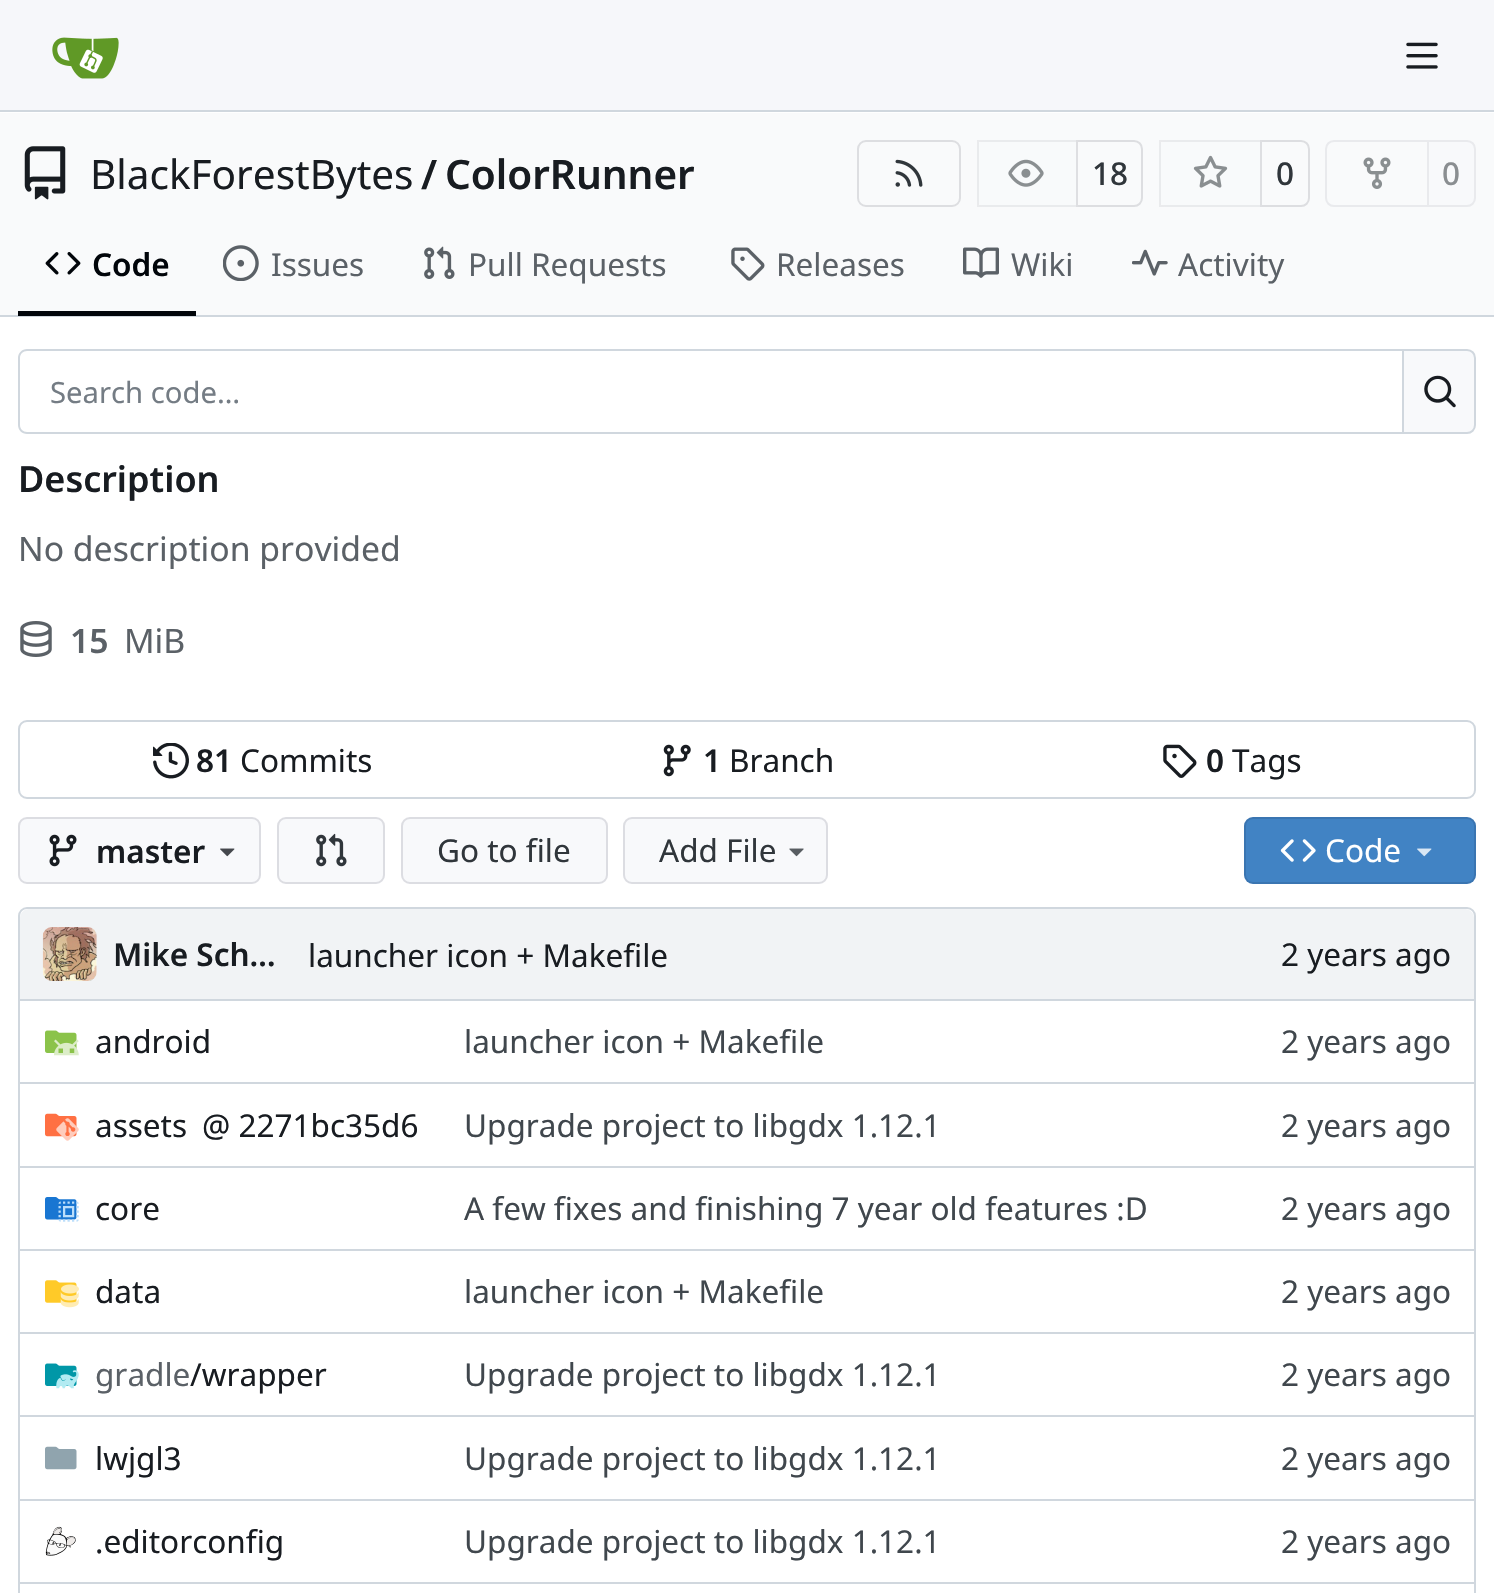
#include "include/core/SkBlurTypes.h"
#include "include/core/SkCanvas.h"
#include "include/core/SkData.h"
#include "include/core/SkFont.h"
#include "include/core/SkFontMgr.h"
#include "include/core/SkImage.h"
#include "include/core/SkMaskFilter.h"
#include "include/core/SkPaint.h"
#include "include/core/SkPathBuilder.h"
#include "include/core/SkTextBlob.h"
#include "include/effects/SkDashPathEffect.h"
#include "include/effects/SkGradientShader.h"
#include "include/utils/SkParsePath.h"

extern sk_sp<SkFontMgr> fontMgr;

void draw(SkCanvas* canvas) {
  SkPaint p;
  p.setAntiAlias(true);
  canvas->clear(SK_ColorWHITE);
  p.setColor(SkColorSetRGB(246, 247, 250));
  canvas->drawRect(SkRect::MakeLTRB(0, 0, 1494, 110), p);
  p.setColor(SkColorSetRGB(208, 215, 222));
  canvas->drawRect(SkRect::MakeLTRB(0, 110, 1494, 112), p);
  canvas->drawImageRect(SkImages::DeferredFromEncodedData(SkData::MakeFromFileName("images/1.png")), SkRect::MakeLTRB(52, 37, 119, 79), SkSamplingOptions());
  canvas->drawImageRect(SkImages::DeferredFromEncodedData(SkData::MakeFromFileName("images/2.png")), SkRect::MakeLTRB(1406, 42, 1438, 69), SkSamplingOptions());
  p.setColor(SkColorSetRGB(249, 250, 251));
  canvas->drawRect(SkRect::MakeLTRB(0, 113, 1494, 315), p);
  canvas->drawImageRect(SkImages::DeferredFromEncodedData(SkData::MakeFromFileName("images/3.png")), SkRect::MakeLTRB(24, 146, 66, 200), SkSamplingOptions());
  p.setStyle(SkPaint::kStroke_Style);
  p.setStrokeWidth(2);
  p.setColor(SkColorSetRGB(221, 222, 225));
  canvas->drawRoundRect(SkRect::MakeLTRB(858, 141, 960, 206), 8, 8, p);
  canvas->drawImageRect(SkImages::DeferredFromEncodedData(SkData::MakeFromFileName("images/4.png")), SkRect::MakeLTRB(895, 159, 923, 187), SkSamplingOptions());
  canvas->drawPath(SkPathBuilder().moveTo(1077, 141).lineTo(1134, 141).cubicTo(1138.5f, 141, 1142, 144.5f, 1142, 149).lineTo(1142, 198).cubicTo(1142, 202.5f, 1138.5f, 206, 1134, 206).lineTo(1077, 206).close().detach(), p);
  p.setStyle(SkPaint::kFill_Style);
  p.setColor(SkColorSetARGB(140, 248, 249, 251));
  canvas->drawPath(SkPathBuilder().moveTo(986, 140).lineTo(1078, 140).lineTo(1078, 207).lineTo(986, 207).cubicTo(981, 207, 977, 203, 977, 198).lineTo(977, 149).cubicTo(977, 144, 981, 140, 986, 140).close().detach(), p);
  p.setStyle(SkPaint::kStroke_Style);
  p.setColor(SkColorSetARGB(15, 0, 0, 23));
  canvas->drawRect(SkRect::MakeLTRB(978, 141, 1077, 206), p);
  canvas->drawImageRect(SkImages::DeferredFromEncodedData(SkData::MakeFromFileName("images/5.png")), SkRect::MakeLTRB(1008, 159, 1044, 187), SkSamplingOptions());
  p.setColor(SkColorSetRGB(221, 222, 225));
  canvas->drawPath(SkPathBuilder().moveTo(1261, 141).lineTo(1301, 141).cubicTo(1305.5f, 141, 1309, 144.5f, 1309, 149).lineTo(1309, 198).cubicTo(1309, 202.5f, 1305.5f, 206, 1301, 206).lineTo(1261, 206).close().detach(), p);
  p.setStyle(SkPaint::kFill_Style);
  p.setColor(SkColorSetARGB(140, 248, 249, 251));
  canvas->drawPath(SkPathBuilder().moveTo(1168, 140).lineTo(1262, 140).lineTo(1262, 207).lineTo(1168, 207).cubicTo(1163, 207, 1159, 203, 1159, 198).lineTo(1159, 149).cubicTo(1159, 144, 1163, 140, 1168, 140).close().detach(), p);
  p.setStyle(SkPaint::kStroke_Style);
  p.setColor(SkColorSetARGB(15, 0, 0, 23));
  canvas->drawRect(SkRect::MakeLTRB(1160, 141, 1261, 206), p);
  canvas->drawImageRect(SkImages::DeferredFromEncodedData(SkData::MakeFromFileName("images/6.png")), SkRect::MakeLTRB(1193, 155, 1228, 188), SkSamplingOptions());
  p.setColor(SkColorSetRGB(233, 234, 237));
  canvas->drawPath(SkPathBuilder().moveTo(1334, 141).lineTo(1428, 141).lineTo(1428, 206).lineTo(1334, 206).cubicTo(1329.5f, 206, 1326, 202.5f, 1326, 198).lineTo(1326, 149).cubicTo(1326, 144.5f, 1329.5f, 141, 1334, 141).close().detach(), p);
  canvas->drawImageRect(SkImages::DeferredFromEncodedData(SkData::MakeFromFileName("images/7.png")), SkRect::MakeLTRB(1363, 157, 1391, 189), SkSamplingOptions());
  p.setStyle(SkPaint::kFill_Style);
  p.setColor(SkColorSetRGB(248, 249, 251));
  canvas->drawPath(SkPathBuilder().moveTo(1428, 141).lineTo(1467, 141).cubicTo(1471.5f, 141, 1475, 144.5f, 1475, 149).lineTo(1475, 198).cubicTo(1475, 202.5f, 1471.5f, 206, 1467, 206).lineTo(1428, 206).close().detach(), p);
  p.setStyle(SkPaint::kStroke_Style);
  p.setColor(SkColorSetRGB(233, 234, 237));
  canvas->drawPath(SkPathBuilder().moveTo(1428, 141).lineTo(1467, 141).cubicTo(1471.5f, 141, 1475, 144.5f, 1475, 149).lineTo(1475, 198).cubicTo(1475, 202.5f, 1471.5f, 206, 1467, 206).lineTo(1428, 206).close().detach(), p);
  p.setStyle(SkPaint::kFill_Style);
  p.setColor(SkColorSetRGB(208, 215, 222));
  canvas->drawRect(SkRect::MakeLTRB(0, 315, 1494, 317), p);
  p.setColor(SkColorSetRGB(1, 5, 10));
  canvas->drawRect(SkRect::MakeLTRB(18, 311, 196, 316), p);
  canvas->drawImageRect(SkImages::DeferredFromEncodedData(SkData::MakeFromFileName("images/8.png")), SkRect::MakeLTRB(45, 252, 81, 275), SkSamplingOptions());
  canvas->drawImageRect(SkImages::DeferredFromEncodedData(SkData::MakeFromFileName("images/9.png")), SkRect::MakeLTRB(223, 245, 259, 281), SkSamplingOptions());
  canvas->drawImageRect(SkImages::DeferredFromEncodedData(SkData::MakeFromFileName("images/10.png")), SkRect::MakeLTRB(424, 246, 455, 279), SkSamplingOptions());
  canvas->drawImageRect(SkImages::DeferredFromEncodedData(SkData::MakeFromFileName("images/11.png")), SkRect::MakeLTRB(731, 247, 765, 281), SkSamplingOptions());
  canvas->drawImageRect(SkImages::DeferredFromEncodedData(SkData::MakeFromFileName("images/12.png")), SkRect::MakeLTRB(963, 247, 999, 278), SkSamplingOptions());
  canvas->drawImageRect(SkImages::DeferredFromEncodedData(SkData::MakeFromFileName("images/13.png")), SkRect::MakeLTRB(1132, 249, 1168, 276), SkSamplingOptions());
  p.setColor(SkColorSetRGB(208, 215, 222));
  canvas->drawPath(SkPathBuilder(SkPathFillType::kEvenOdd).moveTo(27, 349).lineTo(1402, 349).lineTo(1402, 434).lineTo(27, 434).cubicTo(22, 434, 18, 430, 18, 425).lineTo(18, 358).cubicTo(18, 353, 22, 349, 27, 349).close().moveTo(27, 351).lineTo(1402, 351).lineTo(1402, 432).lineTo(27, 432).cubicTo(23, 432, 20, 429, 20, 425).lineTo(20, 358).cubicTo(20, 354, 23, 351, 27, 351).close().detach(), p);
  p.setColor(SkColorSetRGB(248, 249, 251));
  canvas->drawPath(SkPathBuilder().moveTo(1403, 350).lineTo(1467, 350).cubicTo(1471.5f, 350, 1475, 353.5f, 1475, 358).lineTo(1475, 425).cubicTo(1475, 429.5f, 1471.5f, 433, 1467, 433).lineTo(1403, 433).close().detach(), p);
  p.setStyle(SkPaint::kStroke_Style);
  p.setColor(SkColorSetRGB(208, 215, 222));
  canvas->drawPath(SkPathBuilder().moveTo(1403, 350).lineTo(1467, 350).cubicTo(1471.5f, 350, 1475, 353.5f, 1475, 358).lineTo(1475, 425).cubicTo(1475, 429.5f, 1471.5f, 433, 1467, 433).lineTo(1403, 433).close().detach(), p);
  canvas->drawImageRect(SkImages::DeferredFromEncodedData(SkData::MakeFromFileName("images/14.png")), SkRect::MakeLTRB(1424, 375, 1456, 408), SkSamplingOptions());
  canvas->drawImageRect(SkImages::DeferredFromEncodedData(SkData::MakeFromFileName("images/15.png")), SkRect::MakeLTRB(20, 621, 52, 657), SkSamplingOptions());
  canvas->drawRoundRect(SkRect::MakeLTRB(19, 721, 1475, 798), 8, 8, p);
  canvas->drawImageRect(SkImages::DeferredFromEncodedData(SkData::MakeFromFileName("images/16.png")), SkRect::MakeLTRB(153, 743, 189, 779), SkSamplingOptions());
  canvas->drawImageRect(SkImages::DeferredFromEncodedData(SkData::MakeFromFileName("images/17.png")), SkRect::MakeLTRB(663, 744, 691, 777), SkSamplingOptions());
  canvas->drawImageRect(SkImages::DeferredFromEncodedData(SkData::MakeFromFileName("images/18.png")), SkRect::MakeLTRB(1163, 744, 1197, 778), SkSamplingOptions());
  p.setStyle(SkPaint::kFill_Style);
  p.setColor(SkColorSetRGB(248, 249, 251));
  canvas->drawRoundRect(SkRect::MakeLTRB(18, 817, 261, 884), 9, 9, p);
  p.setStyle(SkPaint::kStroke_Style);
  p.setColor(SkColorSetARGB(28, 0, 0, 23));
  canvas->drawRoundRect(SkRect::MakeLTRB(19, 818, 260, 883), 8, 8, p);
  canvas->drawImageRect(SkImages::DeferredFromEncodedData(SkData::MakeFromFileName("images/19.png")), SkRect::MakeLTRB(49, 834, 77, 867), SkSamplingOptions());
  canvas->drawImageRect(SkImages::DeferredFromEncodedData(SkData::MakeFromFileName("images/20.png")), SkRect::MakeLTRB(220, 848, 235, 857), SkSamplingOptions());
  p.setStyle(SkPaint::kFill_Style);
  p.setColor(SkColorSetRGB(248, 249, 251));
  canvas->drawRoundRect(SkRect::MakeLTRB(277, 817, 385, 884), 9, 9, p);
  p.setStyle(SkPaint::kStroke_Style);
  p.setColor(SkColorSetARGB(28, 0, 0, 23));
  canvas->drawRoundRect(SkRect::MakeLTRB(278, 818, 384, 883), 8, 8, p);
  canvas->drawImageRect(SkImages::DeferredFromEncodedData(SkData::MakeFromFileName("images/21.png")), SkRect::MakeLTRB(316, 833, 347, 867), SkSamplingOptions());
  p.setStyle(SkPaint::kFill_Style);
  p.setColor(SkColorSetRGB(248, 249, 251));
  canvas->drawRoundRect(SkRect::MakeLTRB(401, 817, 608, 884), 9, 9, p);
  p.setStyle(SkPaint::kStroke_Style);
  p.setColor(SkColorSetARGB(28, 0, 0, 23));
  canvas->drawRoundRect(SkRect::MakeLTRB(402, 818, 607, 883), 8, 8, p);
  p.setStyle(SkPaint::kFill_Style);
  p.setColor(SkColorSetRGB(248, 249, 251));
  canvas->drawRoundRect(SkRect::MakeLTRB(623, 817, 828, 884), 9, 9, p);
  p.setStyle(SkPaint::kStroke_Style);
  p.setColor(SkColorSetARGB(28, 0, 0, 23));
  canvas->drawRoundRect(SkRect::MakeLTRB(624, 818, 827, 883), 8, 8, p);
  canvas->drawImageRect(SkImages::DeferredFromEncodedData(SkData::MakeFromFileName("images/22.png")), SkRect::MakeLTRB(789, 848, 804, 857), SkSamplingOptions());
  p.setStyle(SkPaint::kFill_Style);
  p.setColor(SkColorSetRGB(65, 131, 196));
  canvas->drawRoundRect(SkRect::MakeLTRB(1244, 817, 1476, 884), 9, 9, p);
  p.setStyle(SkPaint::kStroke_Style);
  p.setColor(SkColorSetARGB(28, 0, 0, 23));
  canvas->drawRoundRect(SkRect::MakeLTRB(1245, 818, 1475, 883), 8, 8, p);
  canvas->drawImageRect(SkImages::DeferredFromEncodedData(SkData::MakeFromFileName("images/23.png")), SkRect::MakeLTRB(1280, 839, 1316, 862), SkSamplingOptions());
  canvas->drawImageRect(SkImages::DeferredFromEncodedData(SkData::MakeFromFileName("images/24.png")), SkRect::MakeLTRB(1417, 848, 1432, 857), SkSamplingOptions());
  p.setColor(SkColorSetRGB(208, 215, 222));
  canvas->drawRoundRect(SkRect::MakeLTRB(19, 908, 1475, 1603), 8, 8, p);
  p.setStyle(SkPaint::kFill_Style);
  p.setColor(SkColorSetRGB(241, 243, 245));
  canvas->drawPath(SkPathBuilder().moveTo(29, 909).lineTo(1465, 909).cubicTo(1470, 909, 1474, 913, 1474, 918).lineTo(1474, 999).lineTo(20, 999).lineTo(20, 918).cubicTo(20, 913, 24, 909, 29, 909).close().detach(), p);
  canvas->drawImageRect(SkImages::DeferredFromEncodedData(SkData::MakeFromFileName("images/25.png")), SkRect::MakeLTRB(42, 927, 97, 981), SkSamplingOptions());
  p.setColor(SkColorSetRGB(208, 215, 222));
  canvas->drawRect(SkRect::MakeLTRB(20, 999, 1258, 1001), p);
  canvas->drawImageRect(SkImages::DeferredFromEncodedData(SkData::MakeFromFileName("images/26.png")), SkRect::MakeLTRB(45, 1030, 79, 1056), SkSamplingOptions());
  canvas->drawRect(SkRect::MakeLTRB(1258, 999, 1474, 1001), p);
  canvas->drawRect(SkRect::MakeLTRB(20, 1082, 1258, 1084), p);
  canvas->drawImageRect(SkImages::DeferredFromEncodedData(SkData::MakeFromFileName("images/27.png")), SkRect::MakeLTRB(45, 1113, 79, 1141), SkSamplingOptions());
  canvas->drawRect(SkRect::MakeLTRB(1258, 1082, 1474, 1084), p);
  canvas->drawRect(SkRect::MakeLTRB(20, 1166, 1258, 1168), p);
  canvas->drawImageRect(SkImages::DeferredFromEncodedData(SkData::MakeFromFileName("images/28.png")), SkRect::MakeLTRB(45, 1197, 79, 1222), SkSamplingOptions());
  canvas->drawRect(SkRect::MakeLTRB(1258, 1166, 1474, 1168), p);
  canvas->drawRect(SkRect::MakeLTRB(20, 1249, 1258, 1251), p);
  canvas->drawImageRect(SkImages::DeferredFromEncodedData(SkData::MakeFromFileName("images/29.png")), SkRect::MakeLTRB(45, 1280, 79, 1308), SkSamplingOptions());
  canvas->drawRect(SkRect::MakeLTRB(1258, 1249, 1474, 1251), p);
  canvas->drawRect(SkRect::MakeLTRB(20, 1332, 1258, 1334), p);
  canvas->drawImageRect(SkImages::DeferredFromEncodedData(SkData::MakeFromFileName("images/30.png")), SkRect::MakeLTRB(45, 1363, 79, 1389), SkSamplingOptions());
  canvas->drawRect(SkRect::MakeLTRB(1258, 1332, 1474, 1334), p);
  canvas->drawRect(SkRect::MakeLTRB(20, 1415, 1258, 1417), p);
  canvas->drawImageRect(SkImages::DeferredFromEncodedData(SkData::MakeFromFileName("images/31.png")), SkRect::MakeLTRB(45, 1446, 77, 1470), SkSamplingOptions());
  canvas->drawRect(SkRect::MakeLTRB(1258, 1415, 1474, 1417), p);
  canvas->drawRect(SkRect::MakeLTRB(20, 1499, 1258, 1501), p);
  canvas->drawImageRect(SkImages::DeferredFromEncodedData(SkData::MakeFromFileName("images/32.png")), SkRect::MakeLTRB(45, 1526, 76, 1556), SkSamplingOptions());
  canvas->drawRect(SkRect::MakeLTRB(1258, 1499, 1474, 1501), p);
  canvas->drawRect(SkRect::MakeLTRB(20, 1582, 1258, 1584), p);
  canvas->drawRect(SkRect::MakeLTRB(1258, 1582, 1474, 1584), p);
  SkFont font1(fontMgr->matchFamilyStyle("Noto Sans", SkFontStyle::Normal()), 40.5f);
  font1.setSubpixel(true);
  p.setColor(SkColorSetRGB(24, 28, 33));
  canvas->drawString("BlackForestBytes", 90, 189, font1, p);
  SkFont font2(fontMgr->matchFamilyStyle("Noto Sans", SkFontStyle(600, SkFontStyle::kNormal_Width, SkFontStyle::kUpright_Slant)), 40.5f);
  font2.setSubpixel(true);
  canvas->drawString("/", 421, 189, font2, p);
  canvas->drawString("ColorRunner", 445, 189, font2, p);
  SkFont font3(fontMgr->matchFamilyStyle("Noto Sans", SkFontStyle(500, SkFontStyle::kNormal_Width, SkFontStyle::kUpright_Slant)), 31.5f);
  font3.setSubpixel(true);
  p.setColor(SkColorSetRGB(48, 54, 59));
  canvas->drawString("18", 1092, 185, font3, p);
  canvas->drawString("0", 1276, 185, font3, p);
  p.setColor(SkColorSetRGB(138, 142, 145));
  canvas->drawString("0", 1442, 185, font3, p);
  SkFont font4(fontMgr->matchFamilyStyle("Noto Sans", SkFontStyle(600, SkFontStyle::kNormal_Width, SkFontStyle::kUpright_Slant)), 31.5f);
  font4.setSubpixel(true);
  p.setColor(SkColorSetRGB(1, 5, 10));
  canvas->drawString("Code", 92, 276, font4, p);
  SkFont font5(fontMgr->matchFamilyStyle("Noto Sans", SkFontStyle::Normal()), 31.5f);
  font5.setSubpixel(true);
  p.setColor(SkColorSetRGB(91, 97, 103));
  canvas->drawString("Issues", 271, 276, font5, p);
  canvas->drawString("Pull Requests", 468, 276, font5, p);
  canvas->drawString("Releases", 776, 276, font5, p);
  canvas->drawString("Wiki", 1011, 276, font5, p);
  canvas->drawString("Activity", 1178, 276, font5, p);
  SkFont font6(fontMgr->matchFamilyStyle("Noto Sans", SkFontStyle::Normal()), 29.25f);
  font6.setSubpixel(true);
  p.setColor(SkColorSetRGB(116, 124, 132));
  canvas->drawString("Search code…", 50, 403, font6, p);
  SkFont font7(fontMgr->matchFamilyStyle("Noto Sans", SkFontStyle(600, SkFontStyle::kNormal_Width, SkFontStyle::kUpright_Slant)), 36);
  font7.setSubpixel(true);
  p.setColor(SkColorSetRGB(24, 28, 33));
  canvas->drawString("Description", 18, 492, font7, p);
  SkFont font8(fontMgr->matchFamilyStyle("Noto Sans", SkFontStyle::Normal()), 33.75f);
  font8.setSubpixel(true);
  p.setColor(SkColorSetRGB(91, 97, 103));
  canvas->drawString("No description provided", 18, 561, font8, p);
  SkFont font9(fontMgr->matchFamilyStyle("Noto Sans", SkFontStyle(600, SkFontStyle::kNormal_Width, SkFontStyle::kUpright_Slant)), 33.75f);
  font9.setSubpixel(true);
  canvas->drawString("15", 70, 653, font9, p);
  canvas->drawString("MiB", 124, 653, font8, p);
  p.setColor(SkColorSetRGB(24, 28, 33));
  canvas->drawString("81", 196, 772, font4, p);
  canvas->drawString("Commits", 240, 772, font5, p);
  canvas->drawString("1", 703, 772, font4, p);
  canvas->drawString("Branch", 729, 772, font5, p);
  canvas->drawString("0", 1206, 772, font4, p);
  canvas->drawString("Tags", 1232, 772, font5, p);
  canvas->drawString("master", 96, 863, font4, p);
  p.setColor(SkColorSetRGB(48, 54, 59));
  canvas->drawString("Go to file", 437, 862, font5, p);
  canvas->drawString("Add File", 659, 862, font5, p);
  p.setColor(SK_ColorWHITE);
  canvas->drawString("Code", 1325, 862, font5, p);
  p.setColor(SkColorSetRGB(24, 28, 33));
  canvas->drawString("Mike Sch…", 113, 966, font4, p);
  canvas->drawString("launcher icon + Makefile", 308, 967, font5, p);
  canvas->drawString("2 years ago", 1281, 966, font5, p);
  canvas->drawString("android", 95, 1053, font5, p);
  p.setColor(SkColorSetRGB(64, 71, 77));
  canvas->drawString("launcher icon + Makefile", 464, 1053, font5, p);
  canvas->drawString("2 years ago", 1281, 1053, font5, p);
  p.setColor(SkColorSetRGB(24, 28, 33));
  canvas->drawString("assets", 95, 1137, font5, p);
  canvas->drawString("@ 2271bc35d6", 202, 1137, font5, p);
  p.setColor(SkColorSetRGB(64, 71, 77));
  canvas->drawString("Upgrade project to libgdx 1.12.1", 464, 1137, font5, p);
  canvas->drawString("2 years ago", 1281, 1137, font5, p);
  p.setColor(SkColorSetRGB(24, 28, 33));
  canvas->drawString("core", 95, 1220, font5, p);
  p.setColor(SkColorSetRGB(64, 71, 77));
  canvas->drawString("A few fixes and finishing 7 year old features :D", 464, 1220, font5, p);
  canvas->drawString("2 years ago", 1281, 1220, font5, p);
  p.setColor(SkColorSetRGB(24, 28, 33));
  canvas->drawString("data", 95, 1303, font5, p);
  p.setColor(SkColorSetRGB(64, 71, 77));
  canvas->drawString("launcher icon + Makefile", 464, 1303, font5, p);
  canvas->drawString("2 years ago", 1281, 1303, font5, p);
  p.setColor(SkColorSetRGB(91, 97, 103));
  canvas->drawString("gradle", 95, 1386, font5, p);
  p.setColor(SkColorSetRGB(24, 28, 33));
  canvas->drawString("/wrapper", 190, 1386, font5, p);
  p.setColor(SkColorSetRGB(64, 71, 77));
  canvas->drawString("Upgrade project to libgdx 1.12.1", 464, 1386, font5, p);
  canvas->drawString("2 years ago", 1281, 1386, font5, p);
  p.setColor(SkColorSetRGB(24, 28, 33));
  canvas->drawString("lwjgl3", 95, 1470, font5, p);
  p.setColor(SkColorSetRGB(64, 71, 77));
  canvas->drawString("Upgrade project to libgdx 1.12.1", 464, 1470, font5, p);
  canvas->drawString("2 years ago", 1281, 1470, font5, p);
  p.setColor(SkColorSetRGB(24, 28, 33));
  canvas->drawString(".editorconfig", 95, 1553, font5, p);
  p.setColor(SkColorSetRGB(64, 71, 77));
  canvas->drawString("Upgrade project to libgdx 1.12.1", 464, 1553, font5, p);
  canvas->drawString("2 years ago", 1281, 1553, font5, p);
}
